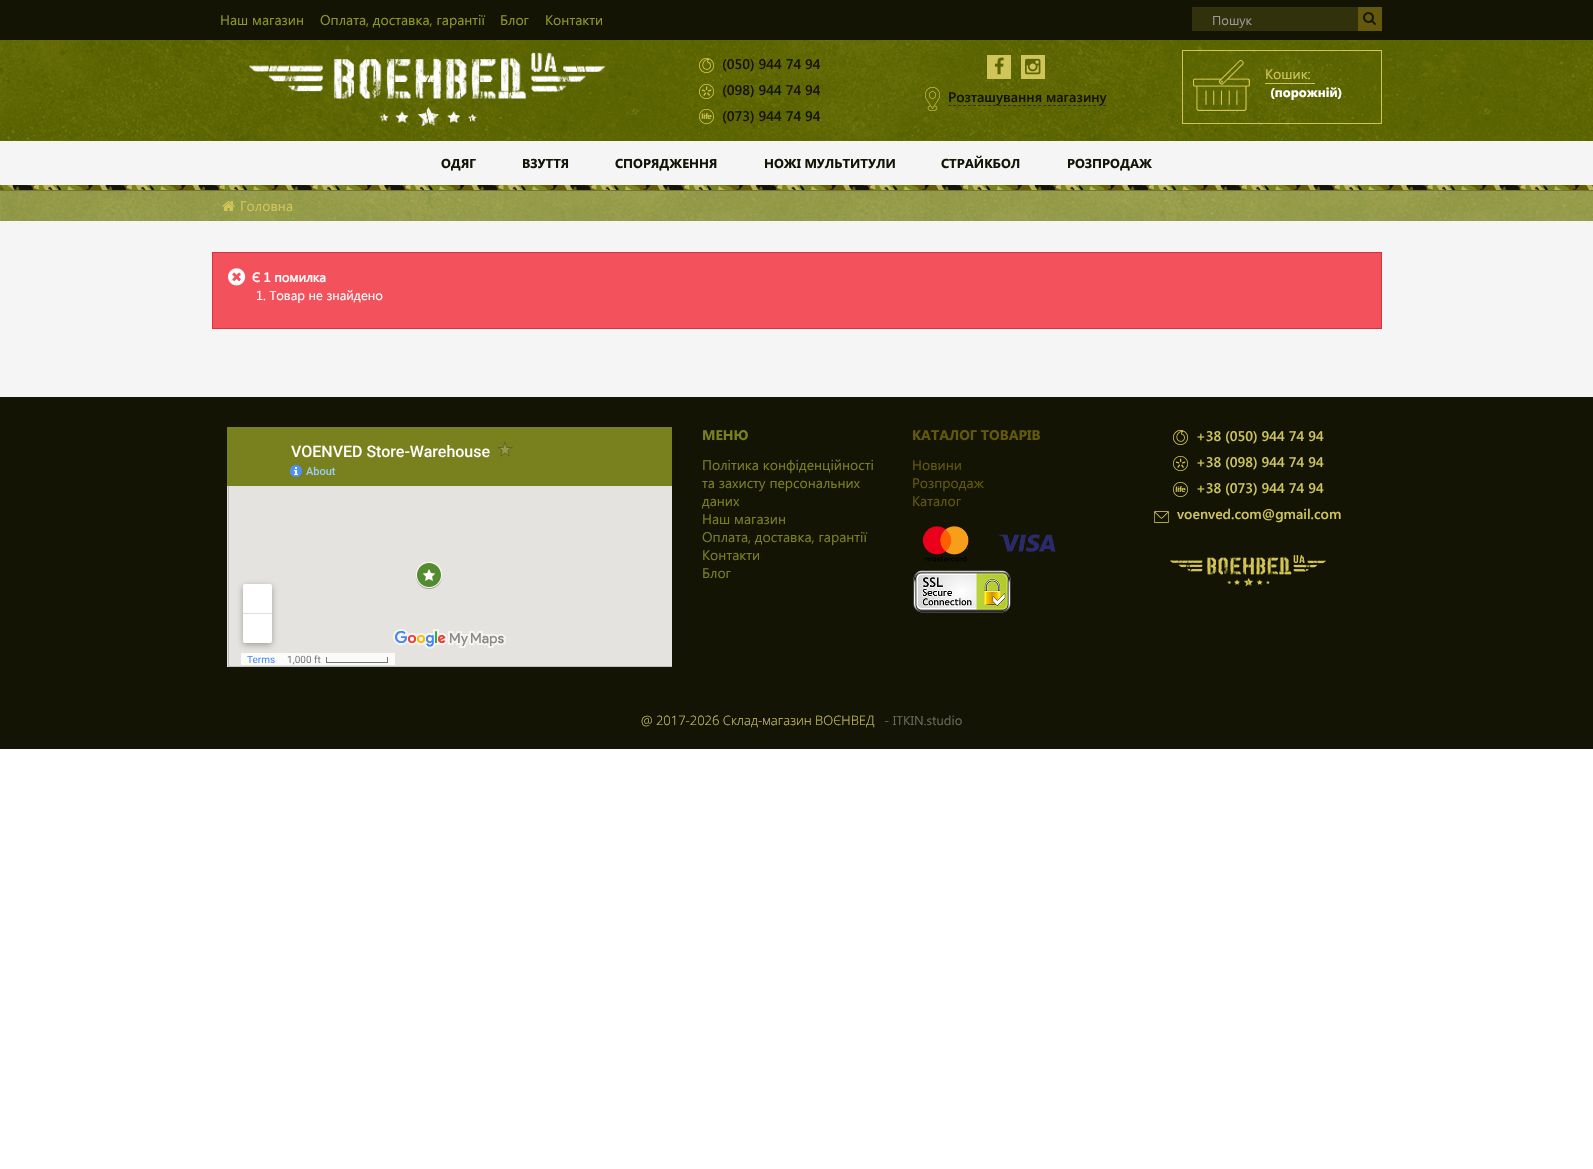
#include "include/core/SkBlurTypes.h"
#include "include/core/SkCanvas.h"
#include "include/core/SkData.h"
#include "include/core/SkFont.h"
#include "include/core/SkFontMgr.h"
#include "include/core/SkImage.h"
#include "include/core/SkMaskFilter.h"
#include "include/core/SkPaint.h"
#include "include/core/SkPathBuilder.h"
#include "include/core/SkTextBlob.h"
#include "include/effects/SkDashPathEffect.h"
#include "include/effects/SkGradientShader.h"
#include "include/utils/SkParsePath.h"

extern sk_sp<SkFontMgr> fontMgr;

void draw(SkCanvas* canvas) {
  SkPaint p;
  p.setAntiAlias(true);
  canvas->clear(SK_ColorWHITE);
  p.setColor(SkColorSetRGB(20, 20, 5));
  canvas->drawRect(SkRect::MakeLTRB(0, 0, 1593, 40), p);
  p.setColor(SkColorSetRGB(49, 50, 12));
  canvas->drawRect(SkRect::MakeLTRB(1192, 7, 1358, 31), p);
  p.setColor(SkColorSetRGB(100, 89, 10));
  canvas->drawRect(SkRect::MakeLTRB(1358, 7, 1382, 31), p);
  canvas->drawImageRect(SkImages::DeferredFromEncodedData(SkData::MakeFromFileName("images/1.png")), SkRect::MakeLTRB(1363, 12, 1376, 25), SkSamplingOptions());
  canvas->drawImageRect(SkImages::DeferredFromEncodedData(SkData::MakeFromFileName("images/2.png")), SkRect::MakeLTRB(0, 40, 1593, 141), SkSamplingOptions());
  canvas->drawImageRect(SkImages::DeferredFromEncodedData(SkData::MakeFromFileName("images/3.png")), SkRect::MakeLTRB(249, 52, 606, 126), SkSamplingOptions());
  canvas->drawImageRect(SkImages::DeferredFromEncodedData(SkData::MakeFromFileName("images/4.png")), SkRect::MakeLTRB(699, 58, 714, 73), SkSamplingOptions());
  canvas->drawImageRect(SkImages::DeferredFromEncodedData(SkData::MakeFromFileName("images/5.png")), SkRect::MakeLTRB(699, 84, 714, 99), SkSamplingOptions());
  canvas->drawImageRect(SkImages::DeferredFromEncodedData(SkData::MakeFromFileName("images/6.png")), SkRect::MakeLTRB(699, 109, 714, 124), SkSamplingOptions());
  p.setColor(SkColorSetRGB(207, 197, 91));
  canvas->drawRect(SkRect::MakeLTRB(987, 55, 1011, 79), p);
  canvas->drawImageRect(SkImages::DeferredFromEncodedData(SkData::MakeFromFileName("images/7.png")), SkRect::MakeLTRB(994, 57, 1004, 75), SkSamplingOptions());
  canvas->drawRect(SkRect::MakeLTRB(1021, 55, 1045, 79), p);
  canvas->drawImageRect(SkImages::DeferredFromEncodedData(SkData::MakeFromFileName("images/8.png")), SkRect::MakeLTRB(1025, 58, 1041, 75), SkSamplingOptions());
  canvas->drawImageRect(SkImages::DeferredFromEncodedData(SkData::MakeFromFileName("images/9.png")), SkRect::MakeLTRB(925, 87, 940, 111), SkSamplingOptions());
  p.setStyle(SkPaint::kStroke_Style);
  p.setStrokeWidth(1);
  p.setColor(SkColorSetRGB(51, 51, 51));
  p.setPathEffect(SkDashPathEffect::Make({{3, 2}}, 0));
  canvas->drawPath(SkPathBuilder().moveTo(948, 105.5f).lineTo(1106, 105.5f).detach(), p);
  p.setPathEffect(nullptr);
  p.setColor(SkColorSetRGB(207, 197, 91));
  canvas->drawRect(SkRect::MakeLTRB(1182.5f, 50.5f, 1381.5f, 123.5f), p);
  canvas->drawImageRect(SkImages::DeferredFromEncodedData(SkData::MakeFromFileName("images/10.png")), SkRect::MakeLTRB(1193, 60, 1250, 111), SkSamplingOptions());
  p.setStyle(SkPaint::kFill_Style);
  canvas->drawRect(SkRect::MakeLTRB(1265, 83, 1315, 84), p);
  p.setColor(SkColorSetRGB(245, 245, 245));
  canvas->drawRect(SkRect::MakeLTRB(0, 141, 1593, 397), p);
  canvas->drawImageRect(SkImages::DeferredFromEncodedData(SkData::MakeFromFileName("images/11.png")), SkRect::MakeLTRB(0, 185, 1593, 190), SkSamplingOptions());
  canvas->drawImageRect(SkImages::DeferredFromEncodedData(SkData::MakeFromFileName("images/12.png")), SkRect::MakeLTRB(0, 191, 1593, 221), SkSamplingOptions());
  p.setColor(SkColorSetRGB(113, 115, 60));
  canvas->drawRect(SkRect::MakeLTRB(0, 190, 1593, 191), p);
  canvas->drawImageRect(SkImages::DeferredFromEncodedData(SkData::MakeFromFileName("images/13.png")), SkRect::MakeLTRB(222, 201, 235, 211), SkSamplingOptions());
  p.setColor(SkColorSetRGB(243, 81, 92));
  canvas->drawRect(SkRect::MakeLTRB(212.5f, 252.5f, 1381.5f, 328.5f), p);
  p.setStyle(SkPaint::kStroke_Style);
  p.setColor(SkColorSetRGB(212, 50, 61));
  canvas->drawRect(SkRect::MakeLTRB(212.5f, 252.5f, 1381.5f, 328.5f), p);
  canvas->drawImageRect(SkImages::DeferredFromEncodedData(SkData::MakeFromFileName("images/14.png")), SkRect::MakeLTRB(228, 268, 246, 286), SkSamplingOptions());
  p.setStyle(SkPaint::kFill_Style);
  p.setColor(SkColorSetRGB(20, 20, 5));
  canvas->drawRect(SkRect::MakeLTRB(0, 397, 1593, 749), p);
  canvas->drawImageRect(SkImages::DeferredFromEncodedData(SkData::MakeFromFileName("images/15.png")), SkRect::MakeLTRB(227, 427, 672, 667), SkSamplingOptions());
  canvas->drawImageRect(SkImages::DeferredFromEncodedData(SkData::MakeFromFileName("images/16.png")), SkRect::MakeLTRB(922, 526, 1056, 562), SkSamplingOptions());
  canvas->drawImageRect(SkImages::DeferredFromEncodedData(SkData::MakeFromFileName("images/17.png")), SkRect::MakeLTRB(913, 570, 1011, 613), SkSamplingOptions());
  canvas->drawImageRect(SkImages::DeferredFromEncodedData(SkData::MakeFromFileName("images/18.png")), SkRect::MakeLTRB(1173, 430, 1188, 445), SkSamplingOptions());
  canvas->drawImageRect(SkImages::DeferredFromEncodedData(SkData::MakeFromFileName("images/19.png")), SkRect::MakeLTRB(1173, 456, 1188, 471), SkSamplingOptions());
  canvas->drawImageRect(SkImages::DeferredFromEncodedData(SkData::MakeFromFileName("images/20.png")), SkRect::MakeLTRB(1173, 482, 1188, 497), SkSamplingOptions());
  canvas->drawImageRect(SkImages::DeferredFromEncodedData(SkData::MakeFromFileName("images/21.png")), SkRect::MakeLTRB(1154, 511, 1169, 523), SkSamplingOptions());
  canvas->drawImageRect(SkImages::DeferredFromEncodedData(SkData::MakeFromFileName("images/22.png")), SkRect::MakeLTRB(1170, 555, 1326, 586), SkSamplingOptions());
  SkFont font1(fontMgr->matchFamilyStyle("Segoe UI", SkFontStyle::Normal()), 14);
  font1.setSubpixel(true);
  p.setColor(SkColorSetRGB(143, 152, 35));
  canvas->drawString("Наш магазин", 220, 25, font1, p);
  canvas->drawString("Оплата, доставка, гарантії", 320, 25, font1, p);
  canvas->drawString("Блог", 500, 25, font1, p);
  canvas->drawString("Контакти", 545, 25, font1, p);
  SkFont font2(fontMgr->matchFamilyStyle("Segoe UI", SkFontStyle::Normal()), 13);
  font2.setSubpixel(true);
  p.setColor(SkColorSetRGB(153, 153, 153));
  canvas->drawString("Пошук", 1212, 25, font2, p);
  SkFont font3(fontMgr->matchFamilyStyle("Segoe UI", SkFontStyle(600, SkFontStyle::kNormal_Width, SkFontStyle::kUpright_Slant)), 14);
  font3.setSubpixel(true);
  p.setColor(SkColorSetRGB(20, 20, 5));
  canvas->drawString("(050) 944 74 94", 722, 69, font3, p);
  canvas->drawString("(098) 944 74 94", 722, 95, font3, p);
  canvas->drawString("(073) 944 74 94", 722, 121, font3, p);
  canvas->drawString("Розташування магазину", 948, 102, font3, p);
  p.setColor(SkColorSetRGB(207, 197, 91));
  canvas->drawString("Кошик:", 1265, 79, font1, p);
  SkFont font4(fontMgr->matchFamilyStyle("Segoe UI", SkFontStyle::Bold()), 13);
  font4.setSubpixel(true);
  p.setColor(SK_ColorWHITE);
  canvas->drawString("(порожній)", 1270, 97, font4, p);
  p.setColor(SkColorSetRGB(20, 20, 5));
  canvas->drawString("ОДЯГ", 441, 168, font4, p);
  canvas->drawString("ВЗУТТЯ", 522, 168, font4, p);
  canvas->drawString("СПОРЯДЖЕННЯ", 615, 168, font4, p);
  canvas->drawString("НОЖІ МУЛЬТИТУЛИ", 764, 168, font4, p);
  canvas->drawString("СТРАЙКБОЛ", 941, 168, font4, p);
  canvas->drawString("РОЗПРОДАЖ", 1067, 168, font4, p);
  p.setColor(SkColorSetRGB(207, 197, 91));
  canvas->drawString("Головна", 240, 211, font1, p);
  SkFont font5(fontMgr->matchFamilyStyle("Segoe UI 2", SkFontStyle::Bold()), 13);
  font5.setSubpixel(true);
  p.setColor(SK_ColorWHITE);
  canvas->drawString("Є 1 помилка", 252, 282, font5, p);
  canvas->drawString("1. Товар не знайдено", 256, 300, font2, p);
  SkFont font6(fontMgr->matchFamilyStyle("Segoe UI", SkFontStyle::Bold()), 14);
  font6.setSubpixel(true);
  p.setColor(SkColorSetRGB(121, 129, 30));
  canvas->drawString("МЕНЮ", 702, 440, font6, p);
  canvas->drawString("Політика конфіденційності", 702, 470, font1, p);
  canvas->drawString("та захисту персональних", 702, 488, font1, p);
  canvas->drawString("даних", 702, 506, font1, p);
  canvas->drawString("Наш магазин", 702, 524, font1, p);
  canvas->drawString("Оплата, доставка, гарантії", 702, 542, font1, p);
  canvas->drawString("Контакти", 702, 560, font1, p);
  canvas->drawString("Блог", 702, 578, font1, p);
  p.setColor(SkColorSetRGB(100, 89, 10));
  canvas->drawString("КАТАЛОГ ТОВАРІВ", 912, 440, font6, p);
  canvas->drawString("Новини", 912, 470, font1, p);
  canvas->drawString("Розпродаж", 912, 488, font1, p);
  canvas->drawString("Каталог", 912, 506, font1, p);
  p.setColor(SkColorSetRGB(207, 197, 91));
  canvas->drawString("+38 (050) 944 74 94", 1196, 441, font3, p);
  canvas->drawString("+38 (098) 944 74 94", 1196, 467, font3, p);
  canvas->drawString("+38 (073) 944 74 94", 1196, 493, font3, p);
  canvas->drawString("voenved.com@gmail.com", 1177, 519, font3, p);
  SkFont font7(fontMgr->matchFamilyStyle("Open Sans", SkFontStyle(300, SkFontStyle::kNormal_Width, SkFontStyle::kUpright_Slant)), 13);
  font7.setSubpixel(true);
  canvas->drawString("@ 2017-2026 Склад-магазин ВОЄНВЕД", 641, 725, font7, p);
  p.setColor(SkColorSetRGB(102, 102, 92));
  canvas->drawString("- ITKIN.studio", 884, 725, font2, p);
}
